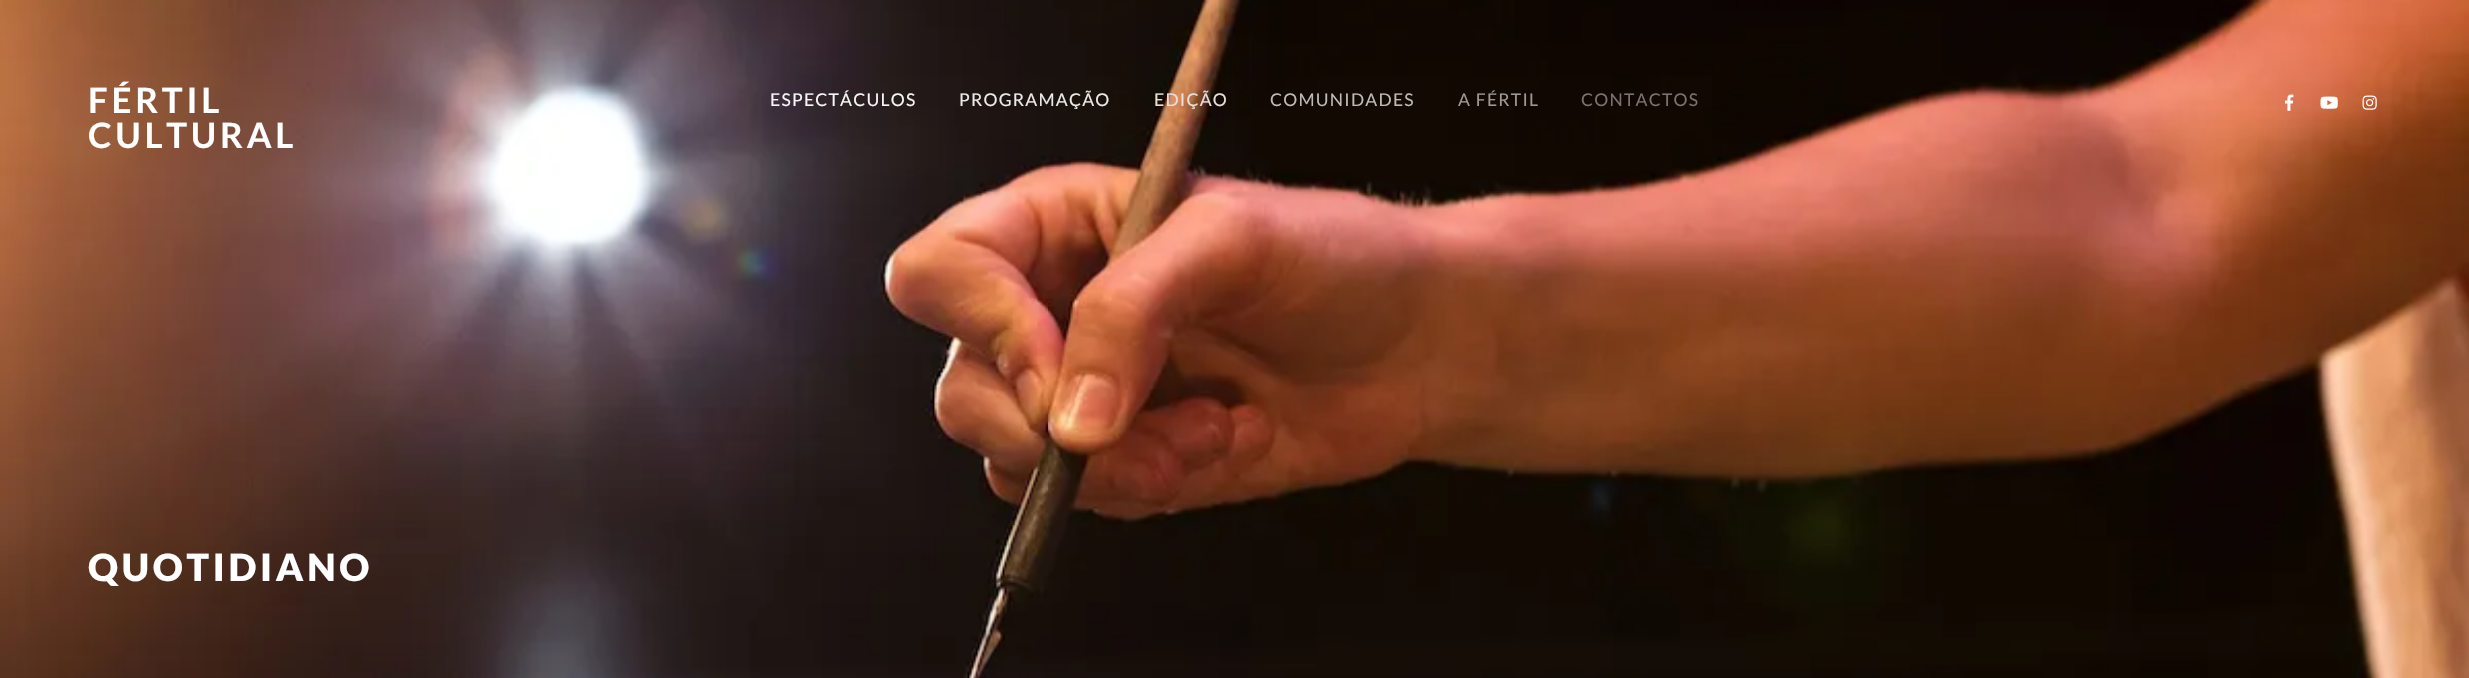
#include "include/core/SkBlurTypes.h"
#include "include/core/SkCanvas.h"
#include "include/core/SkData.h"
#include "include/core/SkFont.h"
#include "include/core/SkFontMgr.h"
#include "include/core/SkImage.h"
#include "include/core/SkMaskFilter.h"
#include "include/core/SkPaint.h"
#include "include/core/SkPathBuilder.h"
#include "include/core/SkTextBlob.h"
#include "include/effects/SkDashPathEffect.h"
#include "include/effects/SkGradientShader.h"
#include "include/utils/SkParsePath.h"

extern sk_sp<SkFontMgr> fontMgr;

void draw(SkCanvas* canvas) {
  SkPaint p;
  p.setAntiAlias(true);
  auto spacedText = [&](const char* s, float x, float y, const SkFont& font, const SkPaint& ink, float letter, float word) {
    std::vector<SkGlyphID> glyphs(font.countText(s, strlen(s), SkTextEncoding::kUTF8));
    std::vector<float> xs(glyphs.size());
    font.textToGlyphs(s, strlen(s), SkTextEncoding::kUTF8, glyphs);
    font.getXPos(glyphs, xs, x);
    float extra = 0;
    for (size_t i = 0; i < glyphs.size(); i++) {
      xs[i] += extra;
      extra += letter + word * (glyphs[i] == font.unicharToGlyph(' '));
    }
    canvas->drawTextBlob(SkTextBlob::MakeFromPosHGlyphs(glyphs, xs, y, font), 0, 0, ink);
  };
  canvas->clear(SK_ColorWHITE);
  canvas->drawImageRect(SkImages::DeferredFromEncodedData(SkData::MakeFromFileName("images/1.png")), SkRect::MakeLTRB(0, 0, 2469, 678), SkSamplingOptions());
  canvas->drawImageRect(SkImages::DeferredFromEncodedData(SkData::MakeFromFileName("images/2.png")), SkRect::MakeLTRB(2285, 94, 2294, 111), SkSamplingOptions());
  canvas->drawImageRect(SkImages::DeferredFromEncodedData(SkData::MakeFromFileName("images/3.png")), SkRect::MakeLTRB(2320, 96, 2338, 109), SkSamplingOptions());
  canvas->drawImageRect(SkImages::DeferredFromEncodedData(SkData::MakeFromFileName("images/4.png")), SkRect::MakeLTRB(2362, 95, 2377, 110), SkSamplingOptions());
  SkFont font1(fontMgr->matchFamilyStyle("Lato", SkFontStyle::Bold()), 35);
  font1.setSubpixel(true);
  p.setColor(SK_ColorWHITE);
  spacedText("FÉRTIL", 88, 113, font1, p, 3.75f, 0);
  spacedText("CULTURAL", 88, 148, font1, p, 3.75f, 0);
  SkFont font2(fontMgr->matchFamilyStyle("Lato", SkFontStyle::Normal()), 17.5f);
  font2.setSubpixel(true);
  p.setColor(SkColorSetRGB(248, 247, 248));
  spacedText("ESPECTÁCULOS", 770, 106, font2, p, 1.25f, 0);
  p.setColor(SkColorSetRGB(235, 234, 234));
  spacedText("PROGRAMAÇÃO", 959, 106, font2, p, 1.25f, 0);
  p.setColor(SkColorSetRGB(230, 223, 219));
  spacedText("EDIÇÃO", 1154, 106, font2, p, 1.25f, 0);
  p.setColor(SkColorSetRGB(189, 187, 185));
  spacedText("COMUNIDADES", 1270, 106, font2, p, 1.25f, 0);
  p.setColor(SkColorSetRGB(156, 153, 150));
  spacedText("A FÉRTIL", 1458, 106, font2, p, 1.25f, 0);
  p.setColor(SkColorSetRGB(120, 115, 112));
  spacedText("CONTACTOS", 1581, 106, font2, p, 1.25f, 0);
  SkFont font3(fontMgr->matchFamilyStyle("Lato", SkFontStyle(900, SkFontStyle::kNormal_Width, SkFontStyle::kUpright_Slant)), 37.5f);
  font3.setSubpixel(true);
  p.setColor(SK_ColorWHITE);
  spacedText("QUOTIDIANO", 88, 581, font3, p, 3.75f, 0);
}
